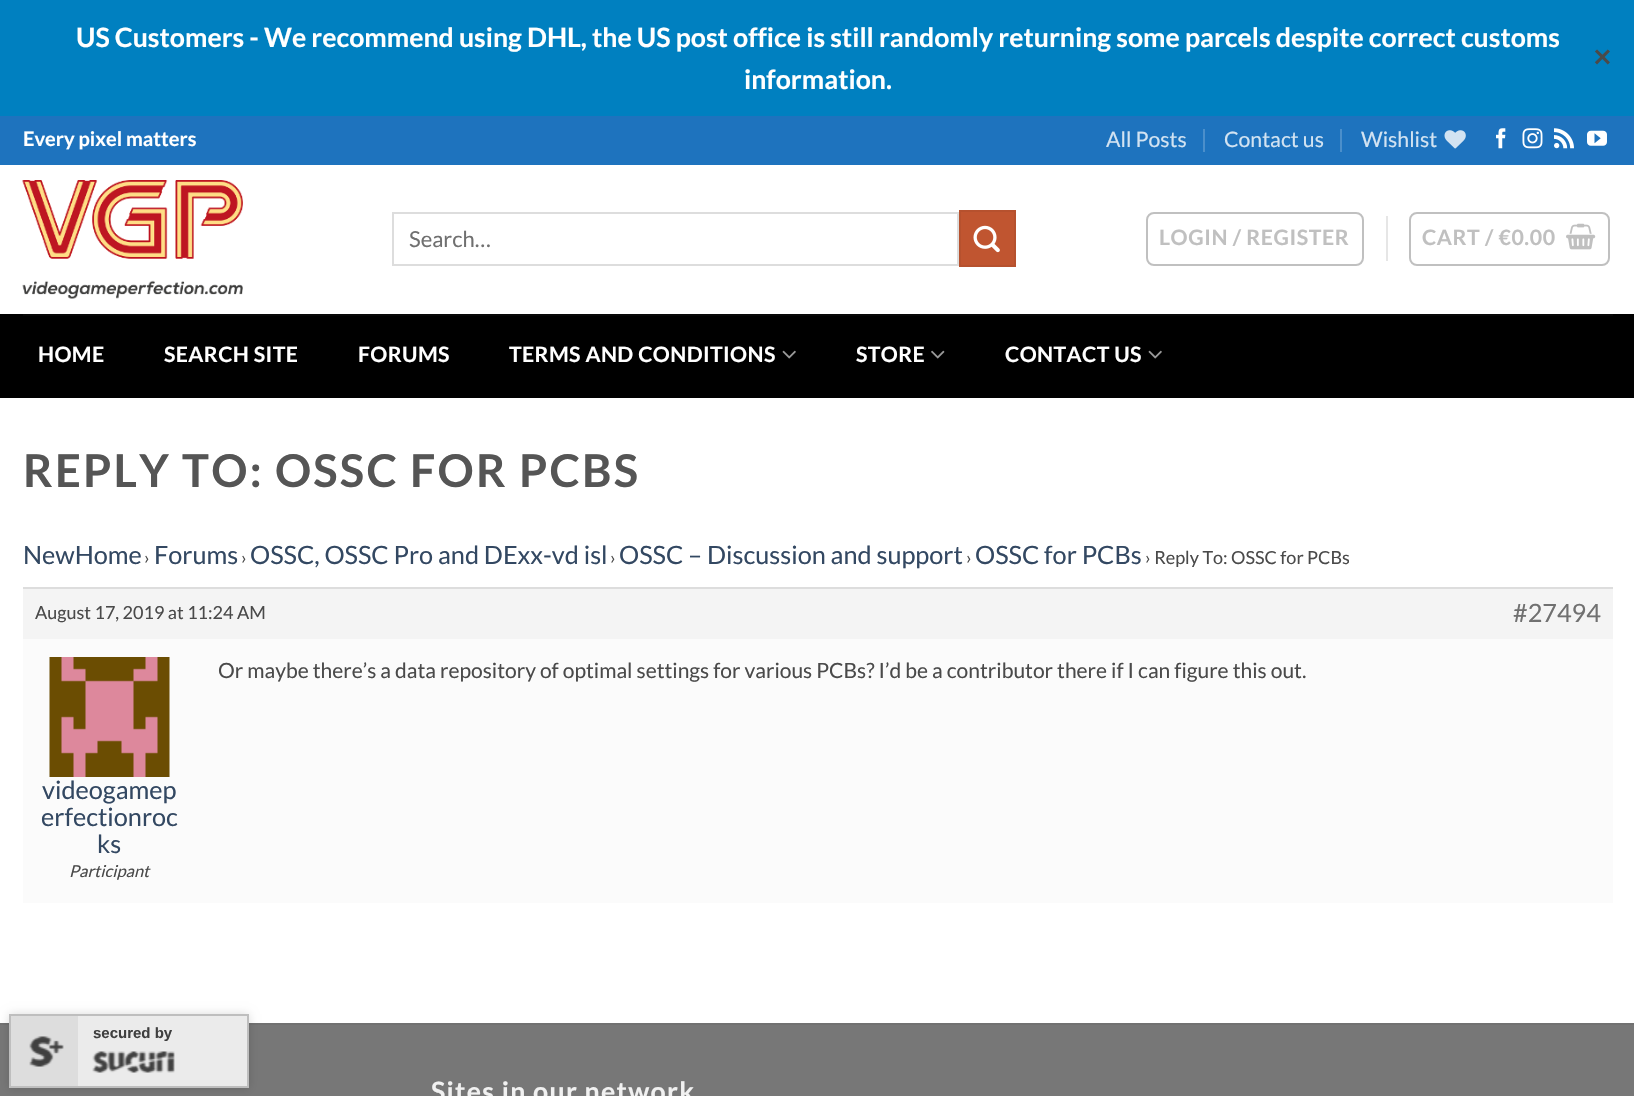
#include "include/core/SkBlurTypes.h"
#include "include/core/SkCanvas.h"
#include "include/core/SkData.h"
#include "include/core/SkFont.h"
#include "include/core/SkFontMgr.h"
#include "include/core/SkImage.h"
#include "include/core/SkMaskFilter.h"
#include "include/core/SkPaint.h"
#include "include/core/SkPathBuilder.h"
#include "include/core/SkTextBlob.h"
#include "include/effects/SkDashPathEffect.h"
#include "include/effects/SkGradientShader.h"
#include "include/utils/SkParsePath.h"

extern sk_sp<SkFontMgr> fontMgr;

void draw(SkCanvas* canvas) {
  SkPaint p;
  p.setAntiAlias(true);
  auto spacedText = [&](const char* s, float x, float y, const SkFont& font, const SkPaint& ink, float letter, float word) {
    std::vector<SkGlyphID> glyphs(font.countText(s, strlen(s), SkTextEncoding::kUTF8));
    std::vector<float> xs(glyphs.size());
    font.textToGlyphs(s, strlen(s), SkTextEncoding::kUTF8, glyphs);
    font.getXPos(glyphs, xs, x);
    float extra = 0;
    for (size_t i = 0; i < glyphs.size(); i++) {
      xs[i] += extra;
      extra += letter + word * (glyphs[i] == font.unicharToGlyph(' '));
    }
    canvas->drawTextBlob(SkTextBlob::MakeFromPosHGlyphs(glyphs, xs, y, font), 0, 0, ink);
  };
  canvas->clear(SK_ColorWHITE);
  p.setColor(SkColorSetRGB(0, 128, 192));
  canvas->drawRect(SkRect::MakeLTRB(0, 0, 1634, 116), p);
  p.setColor(SkColorSetRGB(30, 115, 190));
  canvas->drawRect(SkRect::MakeLTRB(0, 116, 1634, 165), p);
  p.setColor(SkColorSetRGB(75, 143, 203));
  canvas->drawRect(SkRect::MakeLTRB(1203, 129, 1205, 152), p);
  canvas->drawRect(SkRect::MakeLTRB(1340, 129, 1342, 152), p);
  canvas->drawImageRect(SkImages::DeferredFromEncodedData(SkData::MakeFromFileName("images/1.png")), SkRect::MakeLTRB(1444, 130, 1466, 149), SkSamplingOptions());
  canvas->drawImageRect(SkImages::DeferredFromEncodedData(SkData::MakeFromFileName("images/2.png")), SkRect::MakeLTRB(1496, 128, 1506, 149), SkSamplingOptions());
  canvas->drawImageRect(SkImages::DeferredFromEncodedData(SkData::MakeFromFileName("images/3.png")), SkRect::MakeLTRB(1522, 128, 1543, 149), SkSamplingOptions());
  canvas->drawImageRect(SkImages::DeferredFromEncodedData(SkData::MakeFromFileName("images/4.png")), SkRect::MakeLTRB(1554, 128, 1574, 149), SkSamplingOptions());
  canvas->drawImageRect(SkImages::DeferredFromEncodedData(SkData::MakeFromFileName("images/5.png")), SkRect::MakeLTRB(1587, 130, 1607, 146), SkSamplingOptions());
  canvas->drawImageRect(SkImages::DeferredFromEncodedData(SkData::MakeFromFileName("images/6.png")), SkRect::MakeLTRB(22, 180, 243, 299), SkSamplingOptions());
  p.setStyle(SkPaint::kStroke_Style);
  p.setStrokeWidth(2);
  p.setColor(SkColorSetRGB(221, 221, 221));
  canvas->drawRect(SkRect::MakeLTRB(393, 213, 958, 265), p);
  p.setStyle(SkPaint::kFill_Style);
  p.setColor(SkColorSetRGB(192, 85, 48));
  canvas->drawRect(SkRect::MakeLTRB(960, 211, 1015, 266), p);
  p.setStyle(SkPaint::kStroke_Style);
  p.setColor(SkColorSetRGB(182, 81, 46));
  canvas->drawRect(SkRect::MakeLTRB(960, 211, 1015, 266), p);
  canvas->drawImageRect(SkImages::DeferredFromEncodedData(SkData::MakeFromFileName("images/7.png")), SkRect::MakeLTRB(973, 225, 1000, 253), SkSamplingOptions());
  p.setColor(SkColorSetRGB(192, 192, 192));
  canvas->drawRoundRect(SkRect::MakeLTRB(1147, 213, 1363, 265), 7, 7, p);
  p.setStyle(SkPaint::kFill_Style);
  p.setColor(SkColorSetRGB(230, 230, 230));
  canvas->drawRect(SkRect::MakeLTRB(1386, 216, 1388, 261), p);
  p.setStyle(SkPaint::kStroke_Style);
  p.setColor(SkColorSetRGB(192, 192, 192));
  canvas->drawRoundRect(SkRect::MakeLTRB(1410, 213, 1609, 265), 7, 7, p);
  canvas->drawImageRect(SkImages::DeferredFromEncodedData(SkData::MakeFromFileName("images/8.png")), SkRect::MakeLTRB(1566, 223, 1596, 250), SkSamplingOptions());
  p.setStyle(SkPaint::kFill_Style);
  p.setColor(SK_ColorBLACK);
  canvas->drawRect(SkRect::MakeLTRB(0, 314, 1634, 398), p);
  p.setColor(SkColorSetRGB(7, 7, 7));
  canvas->drawRect(SkRect::MakeLTRB(23, 314, 1613, 316), p);
  canvas->drawImageRect(SkImages::DeferredFromEncodedData(SkData::MakeFromFileName("images/9.png")), SkRect::MakeLTRB(782, 350, 796, 359), SkSamplingOptions());
  canvas->drawImageRect(SkImages::DeferredFromEncodedData(SkData::MakeFromFileName("images/10.png")), SkRect::MakeLTRB(931, 350, 945, 359), SkSamplingOptions());
  canvas->drawImageRect(SkImages::DeferredFromEncodedData(SkData::MakeFromFileName("images/9.png")), SkRect::MakeLTRB(1148, 350, 1162, 359), SkSamplingOptions());
  p.setColor(SkColorSetRGB(244, 244, 244));
  canvas->drawRect(SkRect::MakeLTRB(23, 589, 1613, 639), p);
  p.setColor(SkColorSetRGB(221, 221, 221));
  canvas->drawRect(SkRect::MakeLTRB(23, 587, 1613, 589), p);
  p.setColor(SkColorSetRGB(251, 251, 251));
  canvas->drawRect(SkRect::MakeLTRB(23, 639, 1613, 903), p);
  canvas->drawImageRect(SkImages::DeferredFromEncodedData(SkData::MakeFromFileName("images/11.png")), SkRect::MakeLTRB(49, 657, 170, 777), SkSamplingOptions());
  p.setColor(SkColorSetRGB(119, 119, 119));
  canvas->drawRect(SkRect::MakeLTRB(0, 1025, 1634, 1096), p);
  p.setColor(SkColorSetRGB(113, 113, 113));
  canvas->drawRect(SkRect::MakeLTRB(0, 1023, 1634, 1025), p);
  p.setColor(SkColorSetARGB(36, 0, 0, 0));
  p.setMaskFilter(SkMaskFilter::MakeBlur(kNormal_SkBlurStyle, 4.5f));
  canvas->drawRect(SkRect::MakeLTRB(9, 1014, 249, 1088), p);
  p.setMaskFilter(nullptr);
  p.setColor(SkColorSetRGB(235, 235, 235));
  canvas->drawRect(SkRect::MakeLTRB(78, 1016, 247, 1086), p);
  p.setStyle(SkPaint::kStroke_Style);
  p.setColor(SkColorSetRGB(190, 190, 190));
  canvas->drawRect(SkRect::MakeLTRB(10, 1015, 248, 1087), p);
  p.setStyle(SkPaint::kFill_Style);
  p.setColor(SkColorSetRGB(221, 221, 221));
  canvas->drawRect(SkRect::MakeLTRB(11, 1016, 78, 1086), p);
  canvas->drawImageRect(SkImages::DeferredFromEncodedData(SkData::MakeFromFileName("images/12.png")), SkRect::MakeLTRB(29, 1036, 64, 1067), SkSamplingOptions());
  canvas->drawImageRect(SkImages::DeferredFromEncodedData(SkData::MakeFromFileName("images/13.png")), SkRect::MakeLTRB(92, 1051, 175, 1073), SkSamplingOptions());
  SkFont font1(fontMgr->matchFamilyStyle("Lato", SkFontStyle::Bold()), 26.65f);
  font1.setSubpixel(true);
  p.setColor(SK_ColorWHITE);
  canvas->drawString("US Customers - We recommend using DHL, the US post office is still randomly returning some parcels despite correct customs", 76, 47, font1, p);
  canvas->drawString("information.", 744, 89, font1, p);
  SkFont font2(fontMgr->matchFamilyStyle("DejaVu Sans", SkFontStyle::Bold()), 24);
  font2.setSubpixel(true);
  p.setColor(SkColorSetRGB(74, 74, 74));
  spacedText("✕", 1592, 66, font2, p, 1, 0);
  SkFont font3(fontMgr->matchFamilyStyle("Lato", SkFontStyle::Bold()), 20);
  font3.setSubpixel(true);
  p.setColor(SK_ColorWHITE);
  canvas->drawString("Every pixel matters", 23, 146, font3, p);
  SkFont font4(fontMgr->matchFamilyStyle("Lato", SkFontStyle::Normal()), 21.25f);
  font4.setSubpixel(true);
  p.setColor(SkColorSetRGB(210, 227, 242));
  canvas->drawString("All Posts", 1106, 147, font4, p);
  canvas->drawString("Contact us", 1224, 147, font4, p);
  canvas->drawString("Wishlist", 1361, 147, font4, p);
  SkFont font5(fontMgr->matchFamilyStyle("Lato", SkFontStyle::Normal()), 22);
  font5.setSubpixel(true);
  p.setColor(SkColorSetRGB(112, 112, 112));
  canvas->drawString("Search…", 409, 247, font5, p);
  SkFont font6(fontMgr->matchFamilyStyle("Lato", SkFontStyle::Bold()), 21.25f);
  font6.setSubpixel(true);
  p.setColor(SkColorSetRGB(192, 192, 192));
  spacedText("LOGIN / REGISTER", 1159, 245, font6, p, 0.6f, 0);
  spacedText("CART / €0.00", 1422, 245, font6, p, 0.6f, 0);
  p.setColor(SK_ColorWHITE);
  spacedText("HOME", 38, 362, font6, p, 0.4f, 0);
  spacedText("SEARCH SITE", 164, 362, font6, p, 0.4f, 0);
  spacedText("FORUMS", 358, 362, font6, p, 0.4f, 0);
  spacedText("TERMS AND CONDITIONS", 509, 362, font6, p, 0.4f, 0);
  spacedText("STORE", 856, 362, font6, p, 0.4f, 0);
  spacedText("CONTACT US", 1005, 362, font6, p, 0.4f, 0);
  SkFont font7(fontMgr->matchFamilyStyle("Lato", SkFontStyle::Bold()), 45.25f);
  font7.setSubpixel(true);
  p.setColor(SkColorSetRGB(85, 85, 85));
  spacedText("REPLY TO: OSSC FOR PCBS", 23, 487, font7, p, 2.25f, 0);
  SkFont font8(fontMgr->matchFamilyStyle("Lato", SkFontStyle::Normal()), 25.25f);
  font8.setSubpixel(true);
  p.setColor(SkColorSetRGB(51, 72, 98));
  canvas->drawString("NewHome", 23, 564, font8, p);
  SkFont font9(fontMgr->matchFamilyStyle("Lato", SkFontStyle::Normal()), 18);
  font9.setSubpixel(true);
  p.setColor(SkColorSetRGB(74, 74, 74));
  canvas->drawString("›", 144, 564, font9, p);
  p.setColor(SkColorSetRGB(51, 72, 98));
  canvas->drawString("Forums", 154, 564, font8, p);
  p.setColor(SkColorSetRGB(74, 74, 74));
  canvas->drawString("›", 241, 564, font9, p);
  p.setColor(SkColorSetRGB(51, 72, 98));
  canvas->drawString("OSSC, OSSC Pro and DExx-vd isl", 250, 564, font8, p);
  p.setColor(SkColorSetRGB(74, 74, 74));
  canvas->drawString("›", 610, 564, font9, p);
  p.setColor(SkColorSetRGB(51, 72, 98));
  canvas->drawString("OSSC – Discussion and support", 619, 564, font8, p);
  p.setColor(SkColorSetRGB(74, 74, 74));
  canvas->drawString("›", 966, 564, font9, p);
  p.setColor(SkColorSetRGB(51, 72, 98));
  canvas->drawString("OSSC for PCBs", 975, 564, font8, p);
  p.setColor(SkColorSetRGB(74, 74, 74));
  canvas->drawString("› Reply To: OSSC for PCBs", 1145, 564, font9, p);
  canvas->drawString("August 17, 2019 at 11:24 AM", 35, 619, font9, p);
  p.setColor(SkColorSetRGB(112, 112, 112));
  canvas->drawString("#27494", 1513, 622, font8, p);
  SkFont font10(fontMgr->matchFamilyStyle("Lato", SkFontStyle::Normal()), 21);
  font10.setSubpixel(true);
  p.setColor(SkColorSetRGB(74, 74, 74));
  canvas->drawString("Or maybe there’s a data repository of optimal settings for various PCBs? I’d be a contributor there if I can figure this out.", 218, 678, font10, p);
  p.setColor(SkColorSetRGB(51, 72, 98));
  canvas->drawString("videogamep", 42, 799, font8, p);
  canvas->drawString("erfectionroc", 41, 826, font8, p);
  canvas->drawString("ks", 97, 853, font8, p);
  SkFont font11(fontMgr->matchFamilyStyle("Lato", SkFontStyle::Italic()), 16.5f);
  font11.setSubpixel(true);
  p.setColor(SkColorSetRGB(74, 74, 74));
  canvas->drawString("Participant", 69, 877, font11, p);
  p.setColor(SkColorSetRGB(241, 241, 241));
  spacedText("Sites in our network", 431, 1101, font1, p, 1.3f, 0);
  SkFont font12(fontMgr->matchFamilyStyle("Liberation Sans", SkFontStyle::Bold()), 15);
  font12.setSubpixel(true);
  p.setColor(SkColorSetRGB(63, 63, 63));
  canvas->drawString("secured by", 93, 1038, font12, p);
}
